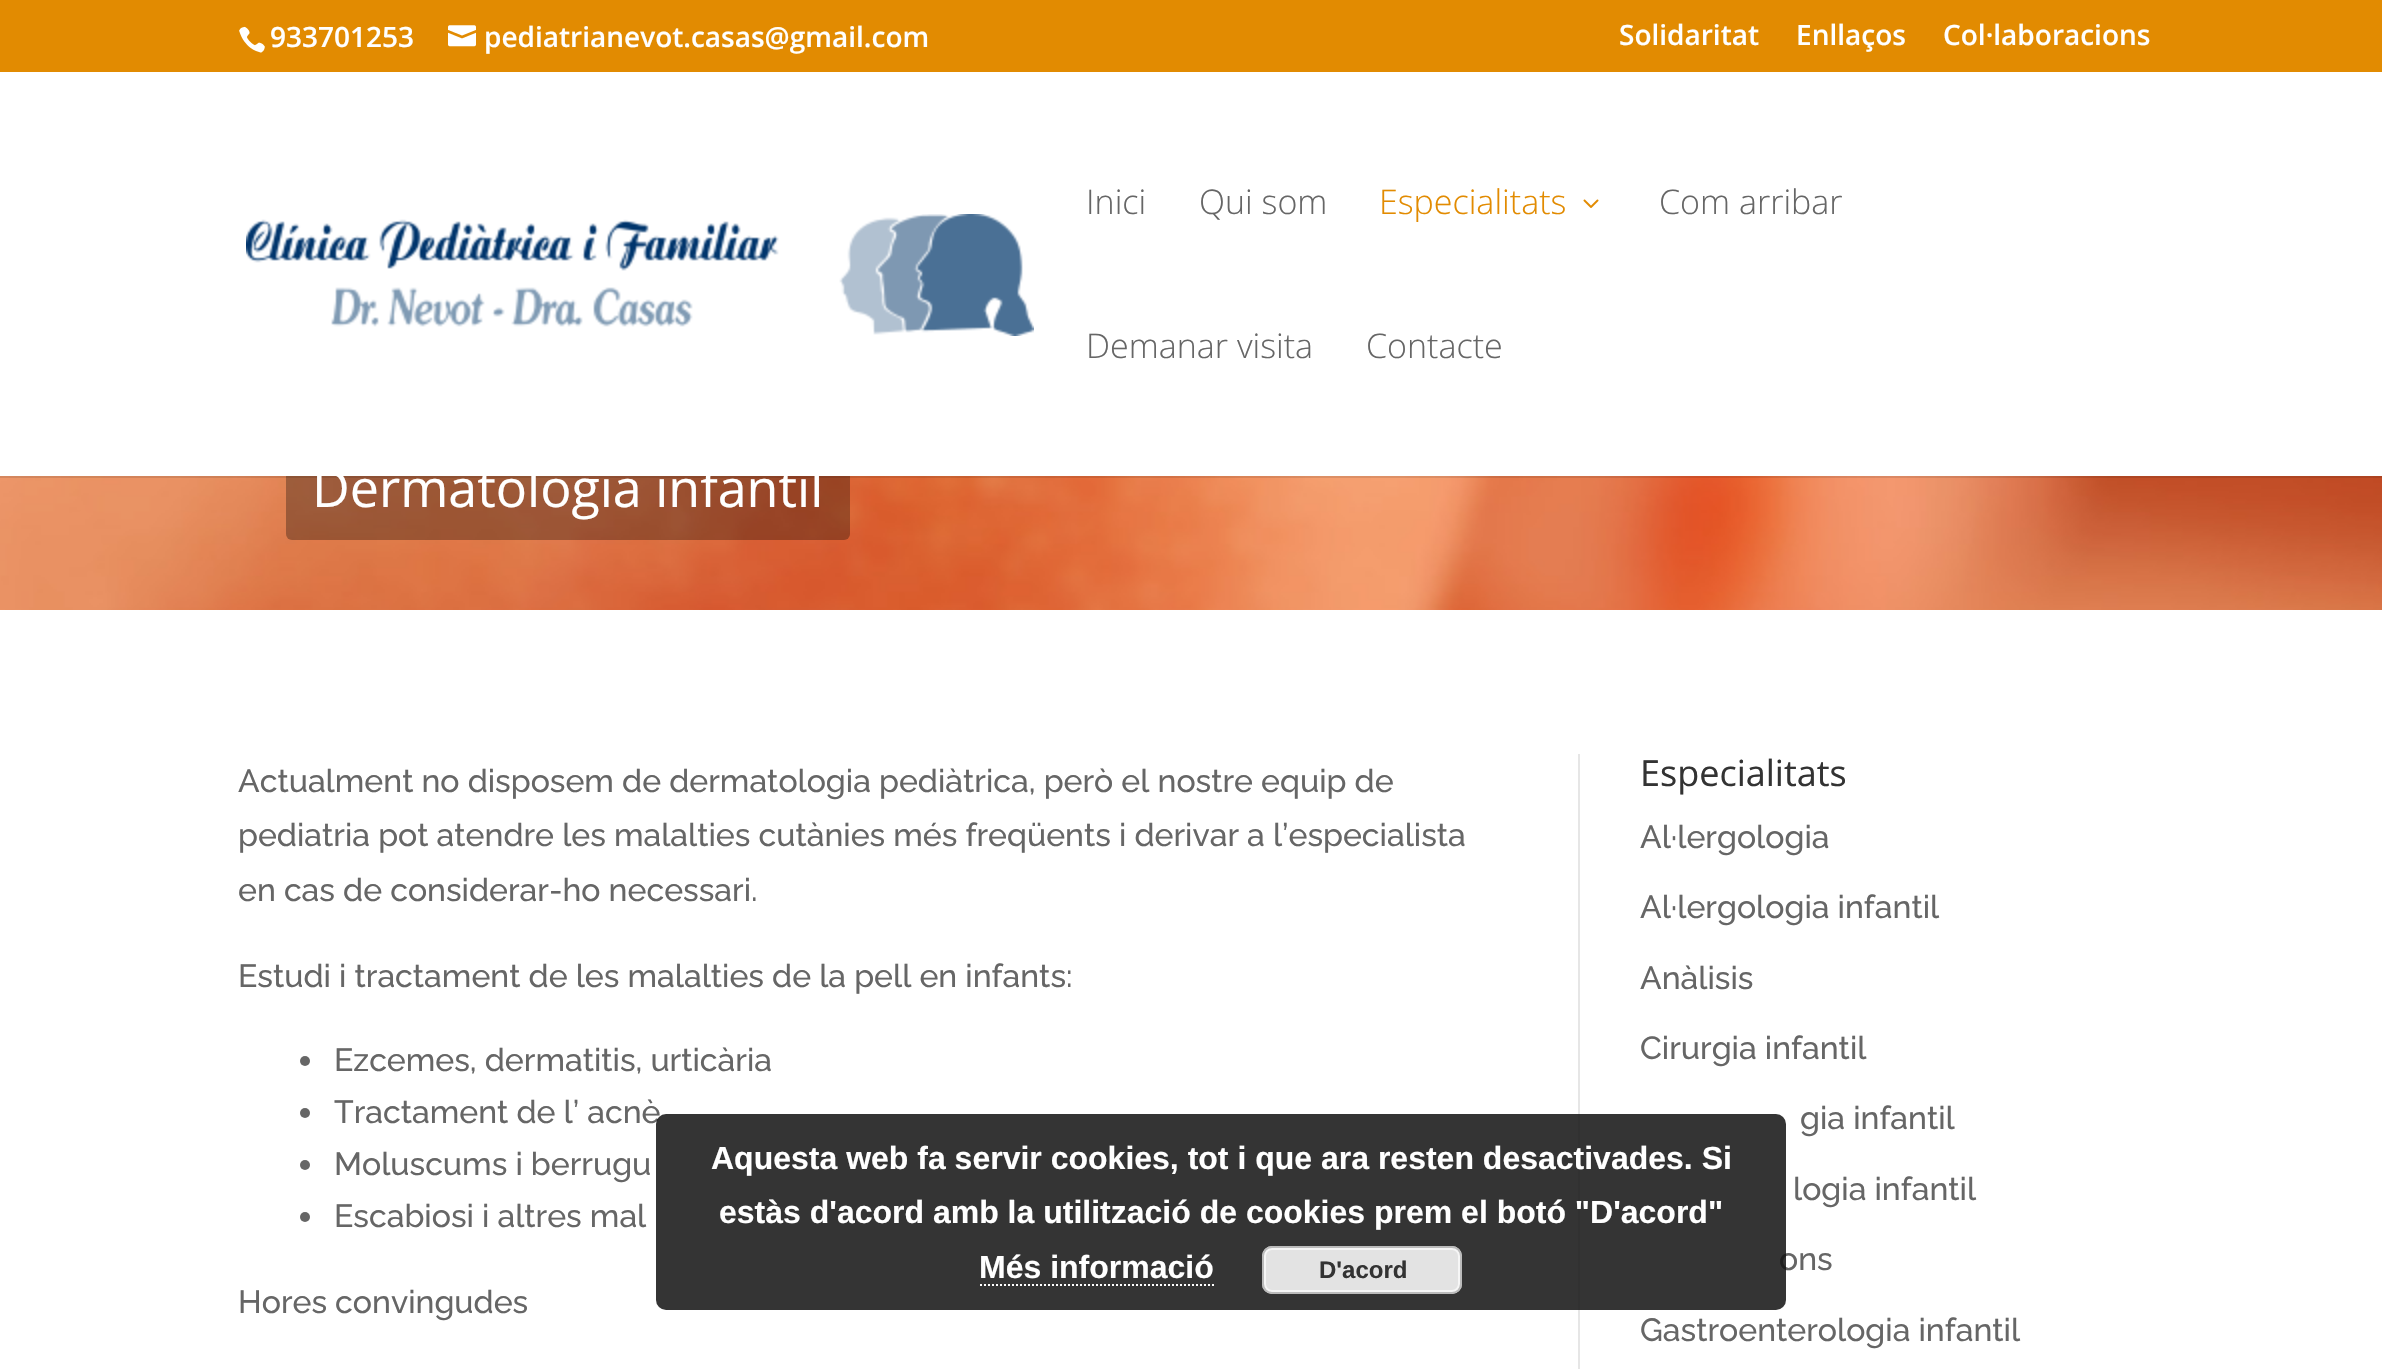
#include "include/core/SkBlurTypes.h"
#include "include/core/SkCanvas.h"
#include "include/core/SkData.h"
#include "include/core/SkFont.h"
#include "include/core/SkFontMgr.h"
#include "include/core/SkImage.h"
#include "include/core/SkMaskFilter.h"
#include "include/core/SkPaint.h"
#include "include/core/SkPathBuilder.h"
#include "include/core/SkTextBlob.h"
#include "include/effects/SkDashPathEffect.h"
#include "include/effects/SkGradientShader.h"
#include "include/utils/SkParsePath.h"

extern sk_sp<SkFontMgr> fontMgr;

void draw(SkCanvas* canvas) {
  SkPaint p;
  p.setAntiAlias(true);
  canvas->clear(SK_ColorWHITE);
  p.setColor(SkColorSetRGB(226, 139, 1));
  canvas->drawRect(SkRect::MakeLTRB(0, 0, 2382, 72), p);
  canvas->drawImageRect(SkImages::DeferredFromEncodedData(SkData::MakeFromFileName("images/1.png")), SkRect::MakeLTRB(239, 26, 265, 53), SkSamplingOptions());
  canvas->drawImageRect(SkImages::DeferredFromEncodedData(SkData::MakeFromFileName("images/2.png")), SkRect::MakeLTRB(448, 25, 476, 47), SkSamplingOptions());
  canvas->drawImageRect(SkImages::DeferredFromEncodedData(SkData::MakeFromFileName("images/5.png")), SkRect::MakeLTRB(0, 476, 2382, 610), SkSamplingOptions());
  p.setColor(SkColorSetARGB(77, 0, 0, 0));
  canvas->drawRoundRect(SkRect::MakeLTRB(286, 436, 850, 540), 6, 6, p);
  p.setColor(SkColorSetARGB(26, 0, 0, 0));
  canvas->drawRect(SkRect::MakeLTRB(0, 476, 2382, 478), p);
  p.setColor(SK_ColorWHITE);
  canvas->drawRect(SkRect::MakeLTRB(286, 436, 850, 476), p);
  canvas->drawImageRect(SkImages::DeferredFromEncodedData(SkData::MakeFromFileName("images/3.png")), SkRect::MakeLTRB(246, 214, 1034, 336), SkSamplingOptions());
  canvas->drawImageRect(SkImages::DeferredFromEncodedData(SkData::MakeFromFileName("images/4.png")), SkRect::MakeLTRB(1583, 199, 1599, 208), SkSamplingOptions());
  p.setColor(SkColorSetRGB(102, 102, 102));
  canvas->drawCircle(305, 1061, 5, p);
  canvas->drawCircle(305, 1113, 5, p);
  canvas->drawCircle(305, 1165, 5, p);
  canvas->drawCircle(305, 1217, 5, p);
  p.setColor(SkColorSetRGB(230, 230, 230));
  canvas->drawRect(SkRect::MakeLTRB(1578, 754, 1580, 1369), p);
  SkFont font1(fontMgr->matchFamilyStyle("Open Sans", SkFontStyle(600, SkFontStyle::kNormal_Width, SkFontStyle::kUpright_Slant)), 28);
  font1.setSubpixel(true);
  p.setColor(SK_ColorWHITE);
  canvas->drawString("933701253", 270, 47, font1, p);
  canvas->drawString("pediatrianevot.casas@gmail.com", 484, 47, font1, p);
  canvas->drawString("Solidaritat", 1619, 45, font1, p);
  canvas->drawString("Enllaços", 1796, 45, font1, p);
  canvas->drawString("Col·laboracions", 1943, 45, font1, p);
  SkFont font2(fontMgr->matchFamilyStyle("Open Sans", SkFontStyle(300, SkFontStyle::kNormal_Width, SkFontStyle::kUpright_Slant)), 34);
  font2.setSubpixel(true);
  p.setColor(SkColorSetRGB(102, 102, 102));
  canvas->drawString("Inici", 1086, 214, font2, p);
  canvas->drawString("Qui som", 1199, 214, font2, p);
  p.setColor(SkColorSetRGB(226, 139, 1));
  canvas->drawString("Especialitats", 1379, 214, font2, p);
  p.setColor(SkColorSetRGB(102, 102, 102));
  canvas->drawString("Com arribar", 1659, 214, font2, p);
  canvas->drawString("Demanar visita", 1086, 358, font2, p);
  canvas->drawString("Contacte", 1366, 358, font2, p);
  SkFont font3(fontMgr->matchFamilyStyle("Open Sans", SkFontStyle::Normal()), 52);
  font3.setSubpixel(true);
  p.setColor(SK_ColorWHITE);
  canvas->drawString("Dermatologia infantil", 312, 507, font3, p);
  SkFont font4(fontMgr->matchFamilyStyle("Raleway", SkFontStyle(500, SkFontStyle::kNormal_Width, SkFontStyle::kUpright_Slant)), 32);
  font4.setSubpixel(true);
  p.setColor(SkColorSetRGB(102, 102, 102));
  canvas->drawString("Actualment no disposem de dermatologia pediàtrica, però el nostre equip de", 238, 792, font4, p);
  canvas->drawString("pediatria pot atendre les malalties cutànies més freqüents i derivar a l’especialista", 238, 846, font4, p);
  canvas->drawString("en cas de considerar-ho necessari.", 238, 901, font4, p);
  canvas->drawString("Estudi i tractament de les malalties de la pell en infants:", 238, 987, font4, p);
  canvas->drawString("Ezcemes, dermatitis, urticària", 334, 1071, font4, p);
  canvas->drawString("Tractament de l’ acnè", 334, 1123, font4, p);
  canvas->drawString("Moluscums i berrugu", 334, 1175, font4, p);
  canvas->drawString("Escabiosi i altres mal", 334, 1227, font4, p);
  canvas->drawString("Hores convingudes", 238, 1313, font4, p);
  SkFont font5(fontMgr->matchFamilyStyle("Open Sans", SkFontStyle::Normal()), 36);
  font5.setSubpixel(true);
  p.setColor(SkColorSetRGB(51, 51, 51));
  canvas->drawString("Especialitats", 1640, 786, font5, p);
  p.setColor(SkColorSetRGB(102, 102, 102));
  canvas->drawString("Al·lergologia", 1640, 848, font4, p);
  canvas->drawString("Al·lergologia infantil", 1640, 918, font4, p);
  canvas->drawString("Anàlisis", 1640, 989, font4, p);
  canvas->drawString("Cirurgia infantil", 1640, 1059, font4, p);
  canvas->drawString("gia infantil", 1800, 1129, font4, p);
  canvas->drawString("logia infantil", 1793, 1200, font4, p);
  canvas->drawString("ons", 1779, 1270, font4, p);
  canvas->drawString("Gastroenterologia infantil", 1640, 1341, font4, p);
  p.setColor(SkColorSetARGB(217, 17, 17, 17));
  canvas->drawRoundRect(SkRect::MakeLTRB(656, 1114, 1786, 1310), 10, 10, p);
  SkFont font6(fontMgr->matchFamilyStyle("Liberation Sans", SkFontStyle::Bold()), 32);
  font6.setSubpixel(true);
  p.setColor(SK_ColorWHITE);
  canvas->drawString("Aquesta web fa servir cookies, tot i que ara resten desactivades. Si", 711, 1169, font6, p);
  canvas->drawString("estàs d'acord amb la utilització de cookies prem el botó \"D'acord\"", 719, 1223, font6, p);
  canvas->drawString("Més informació", 979, 1278, font6, p);
  p.setStyle(SkPaint::kStroke_Style);
  p.setStrokeWidth(2);
  p.setPathEffect(SkDashPathEffect::Make({{2, 2}}, 0));
  canvas->drawPath(SkPathBuilder().moveTo(980, 1285).lineTo(1214, 1285).detach(), p);
  p.setPathEffect(nullptr);
  p.setStyle(SkPaint::kFill_Style);
  p.setColor(SkColorSetRGB(227, 227, 227));
  canvas->drawRoundRect(SkRect::MakeLTRB(1262, 1246, 1462, 1294), 10, 10, p);
  p.setStyle(SkPaint::kStroke_Style);
  p.setColor(SkColorSetRGB(246, 246, 246));
  canvas->drawRoundRect(SkRect::MakeLTRB(1265, 1249, 1459, 1291), 7, 7, p);
  p.setColor(SkColorSetRGB(187, 187, 187));
  canvas->drawRoundRect(SkRect::MakeLTRB(1263, 1247, 1461, 1293), 9, 9, p);
  SkFont font7(fontMgr->matchFamilyStyle("Liberation Sans", SkFontStyle::Bold()), 24);
  font7.setSubpixel(true);
  p.setStyle(SkPaint::kFill_Style);
  p.setColor(SkColorSetRGB(51, 51, 51));
  canvas->drawString("D'acord", 1319, 1278, font7, p);
}
